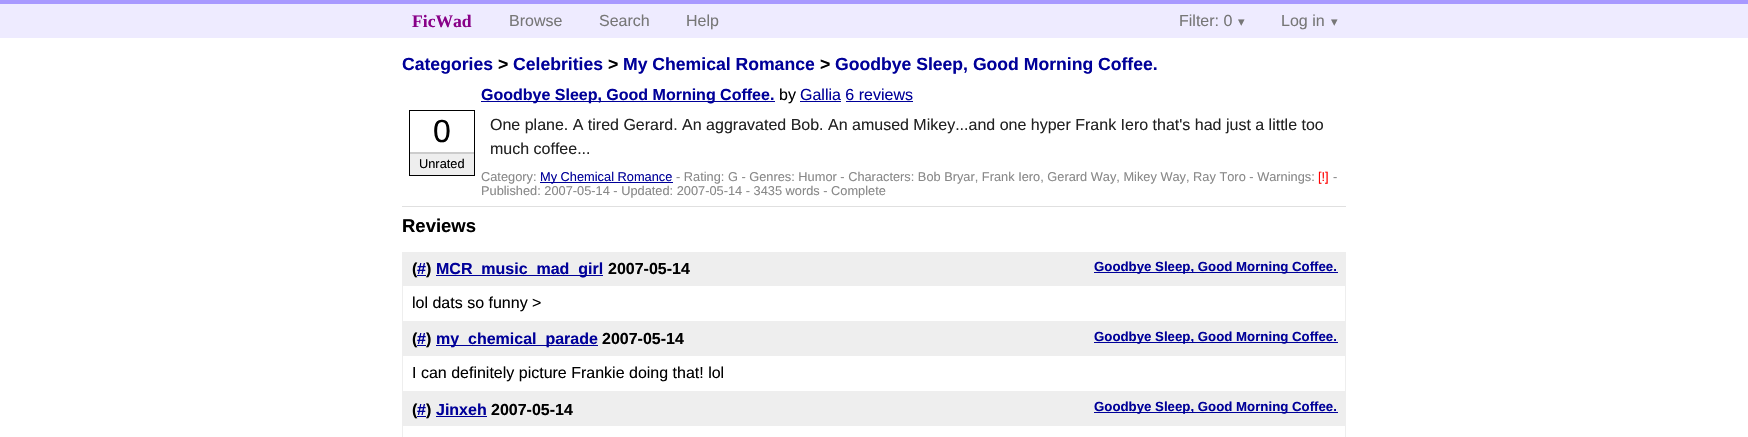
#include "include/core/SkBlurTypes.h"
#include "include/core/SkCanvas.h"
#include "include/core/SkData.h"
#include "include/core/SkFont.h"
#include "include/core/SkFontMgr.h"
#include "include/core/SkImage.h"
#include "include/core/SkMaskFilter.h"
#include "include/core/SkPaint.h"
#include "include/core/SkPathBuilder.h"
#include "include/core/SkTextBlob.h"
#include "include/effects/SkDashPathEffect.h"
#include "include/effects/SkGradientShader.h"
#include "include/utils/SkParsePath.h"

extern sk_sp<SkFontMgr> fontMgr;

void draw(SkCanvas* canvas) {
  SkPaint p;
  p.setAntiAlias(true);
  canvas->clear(SK_ColorWHITE);
  p.setColor(SkColorSetRGB(238, 235, 255));
  canvas->drawRect(SkRect::MakeLTRB(0, 4, 1748, 38), p);
  p.setColor(SkColorSetRGB(168, 153, 255));
  canvas->drawRect(SkRect::MakeLTRB(0, 0, 1748, 4), p);
  p.setColor(SkColorSetRGB(224, 224, 224));
  canvas->drawRect(SkRect::MakeLTRB(402, 206, 1346, 207), p);
  p.setColor(SkColorSetRGB(0, 0, 153));
  canvas->drawRect(SkRect::MakeLTRB(481, 101, 775, 102), p);
  canvas->drawRect(SkRect::MakeLTRB(800, 101, 841, 102), p);
  canvas->drawRect(SkRect::MakeLTRB(846, 101, 913, 102), p);
  p.setStyle(SkPaint::kStroke_Style);
  p.setStrokeWidth(1);
  p.setColor(SK_ColorBLACK);
  canvas->drawRect(SkRect::MakeLTRB(409.5f, 110.5f, 474.5f, 175.5f), p);
  p.setStyle(SkPaint::kFill_Style);
  p.setColor(SkColorSetRGB(238, 238, 238));
  canvas->drawRect(SkRect::MakeLTRB(410, 154, 474, 175), p);
  p.setColor(SkColorSetRGB(204, 204, 204));
  canvas->drawRect(SkRect::MakeLTRB(410, 152, 474, 154), p);
  p.setColor(SkColorSetRGB(0, 0, 153));
  canvas->drawRect(SkRect::MakeLTRB(540, 182, 673, 183), p);
  p.setStyle(SkPaint::kStroke_Style);
  p.setColor(SkColorSetRGB(238, 238, 238));
  canvas->drawRect(SkRect::MakeLTRB(402.5f, 252.5f, 1345.5f, 321.5f), p);
  p.setStyle(SkPaint::kFill_Style);
  canvas->drawRect(SkRect::MakeLTRB(403, 253, 1345, 286), p);
  p.setColor(SkColorSetRGB(0, 0, 153));
  canvas->drawRect(SkRect::MakeLTRB(436, 275, 603, 276), p);
  canvas->drawRect(SkRect::MakeLTRB(1094, 272, 1338, 273), p);
  p.setStyle(SkPaint::kStroke_Style);
  p.setColor(SkColorSetRGB(238, 238, 238));
  canvas->drawRect(SkRect::MakeLTRB(402.5f, 322.5f, 1345.5f, 391.5f), p);
  p.setStyle(SkPaint::kFill_Style);
  canvas->drawRect(SkRect::MakeLTRB(403, 323, 1345, 356), p);
  p.setColor(SkColorSetRGB(0, 0, 153));
  canvas->drawRect(SkRect::MakeLTRB(436, 345, 598, 346), p);
  canvas->drawRect(SkRect::MakeLTRB(1094, 342, 1338, 343), p);
  p.setStyle(SkPaint::kStroke_Style);
  p.setColor(SkColorSetRGB(238, 238, 238));
  canvas->drawRect(SkRect::MakeLTRB(402.5f, 392.5f, 1345.5f, 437.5f), p);
  p.setStyle(SkPaint::kFill_Style);
  canvas->drawRect(SkRect::MakeLTRB(403, 393, 1345, 426), p);
  p.setColor(SkColorSetRGB(0, 0, 153));
  canvas->drawRect(SkRect::MakeLTRB(436, 416, 487, 417), p);
  canvas->drawRect(SkRect::MakeLTRB(1094, 412, 1338, 413), p);
  SkFont font1(fontMgr->matchFamilyStyle("Liberation Serif", SkFontStyle::Bold()), 17.6f);
  font1.setSubpixel(true);
  p.setColor(SkColorSetRGB(136, 0, 136));
  canvas->drawString("FicWad", 412, 27, font1, p);
  SkFont font2(fontMgr->matchFamilyStyle("Liberation Sans", SkFontStyle::Normal()), 16);
  font2.setSubpixel(true);
  p.setColor(SkColorSetRGB(119, 119, 119));
  canvas->drawString("Browse", 509, 26, font2, p);
  canvas->drawString("Search", 599, 26, font2, p);
  canvas->drawString("Help", 686, 26, font2, p);
  canvas->drawString("Filter: 0", 1179, 26, font2, p);
  SkFont font3(fontMgr->matchFamilyStyle("DejaVu Sans", SkFontStyle::Normal()), 13);
  font3.setSubpixel(true);
  canvas->drawString("▾", 1238, 26, font3, p);
  canvas->drawString("Log in", 1281, 26, font2, p);
  canvas->drawString("▾", 1331, 26, font3, p);
  SkFont font4(fontMgr->matchFamilyStyle("Liberation Sans", SkFontStyle::Bold()), 17.6f);
  font4.setSubpixel(true);
  p.setColor(SkColorSetRGB(0, 0, 153));
  canvas->drawString("Categories", 402, 70, font4, p);
  p.setColor(SK_ColorBLACK);
  canvas->drawString(">", 498, 70, font4, p);
  p.setColor(SkColorSetRGB(0, 0, 153));
  canvas->drawString("Celebrities", 513, 70, font4, p);
  p.setColor(SK_ColorBLACK);
  canvas->drawString(">", 608, 70, font4, p);
  p.setColor(SkColorSetRGB(0, 0, 153));
  canvas->drawString("My Chemical Romance", 623, 70, font4, p);
  p.setColor(SK_ColorBLACK);
  canvas->drawString(">", 820, 70, font4, p);
  p.setColor(SkColorSetRGB(0, 0, 153));
  canvas->drawString("Goodbye Sleep, Good Morning Coffee.", 835, 70, font4, p);
  SkFont font5(fontMgr->matchFamilyStyle("Liberation Sans", SkFontStyle::Bold()), 16);
  font5.setSubpixel(true);
  canvas->drawString("Goodbye Sleep, Good Morning Coffee.", 481, 100, font5, p);
  p.setColor(SK_ColorBLACK);
  canvas->drawString("by", 779, 100, font2, p);
  p.setColor(SkColorSetRGB(0, 0, 153));
  canvas->drawString("Gallia 6 reviews", 800, 100, font2, p);
  SkFont font6(fontMgr->matchFamilyStyle("Liberation Sans", SkFontStyle::Normal()), 32);
  font6.setSubpixel(true);
  p.setColor(SK_ColorBLACK);
  canvas->drawString("0", 433, 142, font6, p);
  SkFont font7(fontMgr->matchFamilyStyle("Liberation Sans", SkFontStyle::Normal()), 12.8f);
  font7.setSubpixel(true);
  canvas->drawString("Unrated", 419, 168, font7, p);
  p.setColor(SkColorSetRGB(34, 34, 34));
  canvas->drawString("One plane. A tired Gerard. An aggravated Bob. An amused Mikey...and one hyper Frank Iero that's had just a little too", 490, 130, font2, p);
  canvas->drawString("much coffee...", 490, 154, font2, p);
  p.setColor(SkColorSetRGB(136, 136, 136));
  canvas->drawString("Category:", 481, 181, font7, p);
  p.setColor(SkColorSetRGB(0, 0, 153));
  canvas->drawString("My Chemical Romance", 540, 181, font7, p);
  p.setColor(SkColorSetRGB(136, 136, 136));
  canvas->drawString("- Rating: G - Genres: Humor - Characters: Bob Bryar, Frank Iero, Gerard Way, Mikey Way, Ray Toro - Warnings:", 676, 181, font7, p);
  p.setColor(SkColorSetRGB(255, 0, 0));
  canvas->drawString("[!]", 1318, 181, font7, p);
  p.setColor(SkColorSetRGB(136, 136, 136));
  canvas->drawString("-", 1333, 181, font7, p);
  canvas->drawString("Published: 2007-05-14 - Updated: 2007-05-14 - 3435 words - Complete", 481, 195, font7, p);
  SkFont font8(fontMgr->matchFamilyStyle("Liberation Sans", SkFontStyle::Bold()), 18.5f);
  font8.setSubpixel(true);
  p.setColor(SK_ColorBLACK);
  canvas->drawString("Reviews", 402, 232, font8, p);
  canvas->drawString("(", 412, 274, font5, p);
  p.setColor(SkColorSetRGB(0, 0, 153));
  canvas->drawString("#", 417, 274, font5, p);
  canvas->drawRect(SkRect::MakeLTRB(417, 275, 426, 276), p);
  p.setColor(SK_ColorBLACK);
  canvas->drawString(")", 426, 274, font5, p);
  p.setColor(SkColorSetRGB(0, 0, 153));
  canvas->drawString("MCR_music_mad_girl", 436, 274, font5, p);
  p.setColor(SK_ColorBLACK);
  canvas->drawString("2007-05-14", 608, 274, font5, p);
  SkFont font9(fontMgr->matchFamilyStyle("Liberation Sans", SkFontStyle::Bold()), 13.25f);
  font9.setSubpixel(true);
  p.setColor(SkColorSetRGB(0, 0, 153));
  canvas->drawString("Goodbye Sleep, Good Morning Coffee.", 1094, 271, font9, p);
  p.setColor(SK_ColorBLACK);
  canvas->drawString("lol dats so funny >", 412, 308, font2, p);
  canvas->drawString("(", 412, 344, font5, p);
  p.setColor(SkColorSetRGB(0, 0, 153));
  canvas->drawString("#", 417, 344, font5, p);
  canvas->drawRect(SkRect::MakeLTRB(417, 345, 426, 346), p);
  p.setColor(SK_ColorBLACK);
  canvas->drawString(")", 426, 344, font5, p);
  p.setColor(SkColorSetRGB(0, 0, 153));
  canvas->drawString("my_chemical_parade", 436, 344, font5, p);
  p.setColor(SK_ColorBLACK);
  canvas->drawString("2007-05-14", 602, 344, font5, p);
  p.setColor(SkColorSetRGB(0, 0, 153));
  canvas->drawString("Goodbye Sleep, Good Morning Coffee.", 1094, 341, font9, p);
  p.setColor(SK_ColorBLACK);
  canvas->drawString("I can definitely picture Frankie doing that! lol", 412, 378, font2, p);
  canvas->drawString("(", 412, 415, font5, p);
  p.setColor(SkColorSetRGB(0, 0, 153));
  canvas->drawString("#", 417, 415, font5, p);
  canvas->drawRect(SkRect::MakeLTRB(417, 416, 426, 417), p);
  p.setColor(SK_ColorBLACK);
  canvas->drawString(")", 426, 415, font5, p);
  p.setColor(SkColorSetRGB(0, 0, 153));
  canvas->drawString("Jinxeh", 436, 415, font5, p);
  p.setColor(SK_ColorBLACK);
  canvas->drawString("2007-05-14", 491, 415, font5, p);
  p.setColor(SkColorSetRGB(0, 0, 153));
  canvas->drawString("Goodbye Sleep, Good Morning Coffee.", 1094, 411, font9, p);
}
